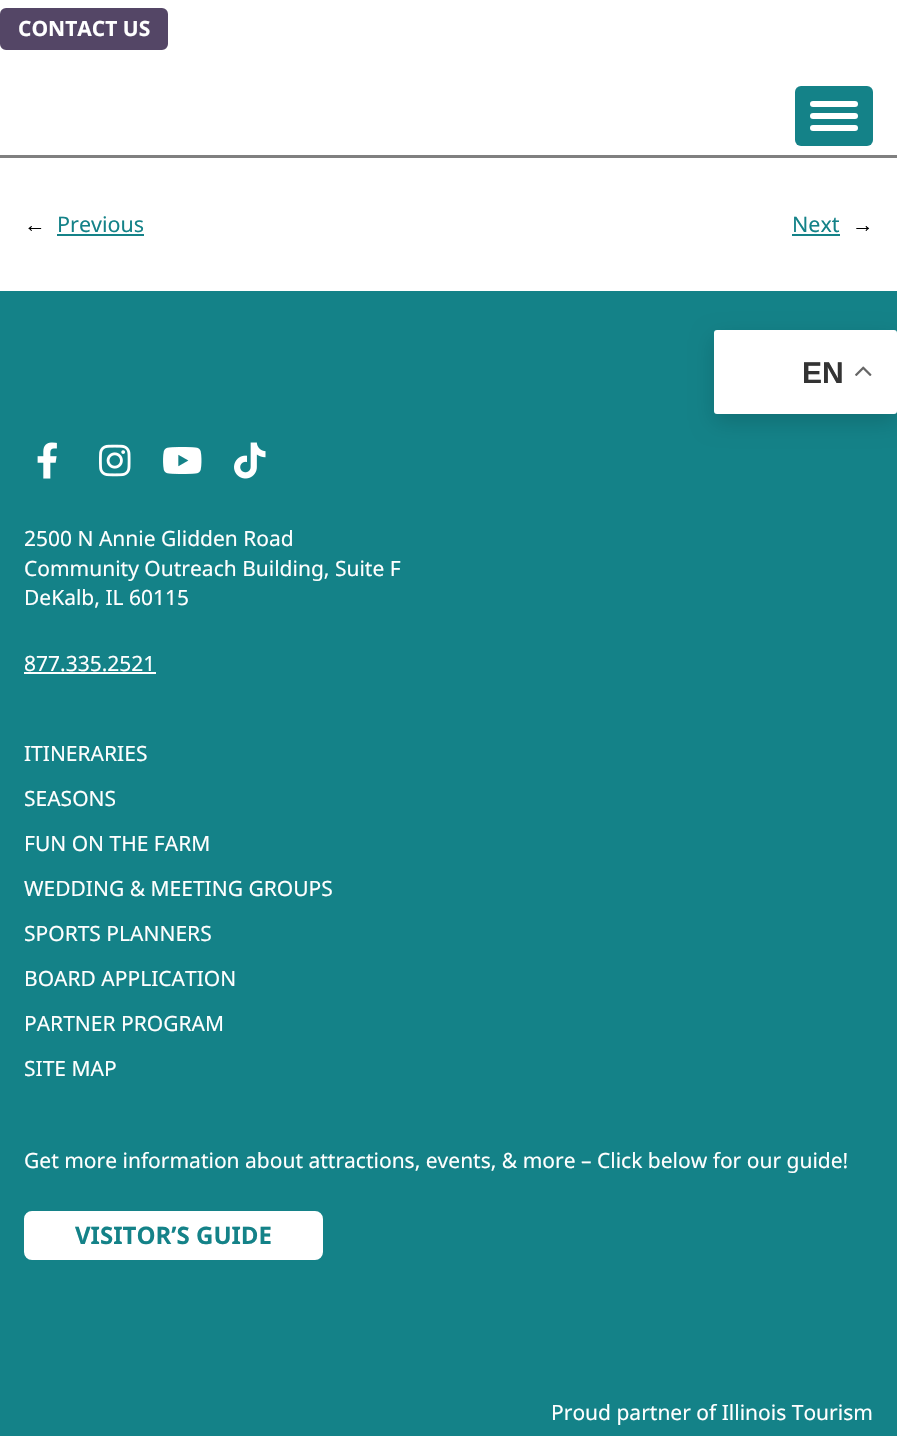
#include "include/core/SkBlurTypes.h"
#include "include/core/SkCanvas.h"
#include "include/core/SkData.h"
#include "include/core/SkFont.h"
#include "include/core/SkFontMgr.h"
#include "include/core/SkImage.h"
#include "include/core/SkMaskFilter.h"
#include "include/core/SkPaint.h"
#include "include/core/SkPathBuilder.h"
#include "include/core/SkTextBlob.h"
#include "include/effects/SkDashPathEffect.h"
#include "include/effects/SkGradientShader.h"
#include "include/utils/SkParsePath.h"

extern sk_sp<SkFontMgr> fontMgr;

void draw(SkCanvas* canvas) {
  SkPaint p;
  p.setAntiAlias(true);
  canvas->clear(SK_ColorWHITE);
  p.setColor(SkColorSetRGB(84, 70, 102));
  canvas->drawRoundRect(SkRect::MakeLTRB(1.5f, 9.5f, 166.5f, 48.5f), 4.5f, 4.5f, p);
  p.setStyle(SkPaint::kStroke_Style);
  p.setStrokeWidth(3);
  canvas->drawRoundRect(SkRect::MakeLTRB(1.5f, 9.5f, 166.5f, 48.5f), 4.5f, 4.5f, p);
  p.setStyle(SkPaint::kFill_Style);
  p.setColor(SkColorSetRGB(20, 130, 136));
  canvas->drawRoundRect(SkRect::MakeLTRB(795, 86, 873, 146), 6, 6, p);
  p.setColor(SK_ColorWHITE);
  canvas->drawRoundRect(SkRect::MakeLTRB(810, 101, 858, 107), 3, 3, p);
  canvas->drawRoundRect(SkRect::MakeLTRB(810, 113, 858, 119), 3, 3, p);
  canvas->drawRoundRect(SkRect::MakeLTRB(810, 125, 858, 131), 3, 3, p);
  p.setColor(SkColorSetRGB(128, 128, 128));
  canvas->drawRect(SkRect::MakeLTRB(0, 155, 897, 158), p);
  p.setColor(SkColorSetRGB(20, 130, 136));
  canvas->drawRect(SkRect::MakeLTRB(57, 234, 144, 236), p);
  canvas->drawRect(SkRect::MakeLTRB(792, 234, 840, 236), p);
  canvas->drawRect(SkRect::MakeLTRB(0, 291, 897, 1436), p);
  canvas->drawImageRect(SkImages::DeferredFromEncodedData(SkData::MakeFromFileName("images/1.png")), SkRect::MakeLTRB(37, 442, 57, 479), SkSamplingOptions());
  canvas->drawImageRect(SkImages::DeferredFromEncodedData(SkData::MakeFromFileName("images/2.png")), SkRect::MakeLTRB(99, 444, 131, 477), SkSamplingOptions());
  canvas->drawImageRect(SkImages::DeferredFromEncodedData(SkData::MakeFromFileName("images/3.png")), SkRect::MakeLTRB(163, 447, 202, 474), SkSamplingOptions());
  canvas->drawImageRect(SkImages::DeferredFromEncodedData(SkData::MakeFromFileName("images/4.png")), SkRect::MakeLTRB(234, 442, 266, 479), SkSamplingOptions());
  p.setColor(SK_ColorWHITE);
  canvas->drawRect(SkRect::MakeLTRB(24, 672, 156, 674), p);
  canvas->drawRoundRect(SkRect::MakeLTRB(25.5f, 1212.5f, 321.5f, 1258.5f), 6.5f, 6.5f, p);
  p.setStyle(SkPaint::kStroke_Style);
  canvas->drawRoundRect(SkRect::MakeLTRB(25.5f, 1212.5f, 321.5f, 1258.5f), 6.5f, 6.5f, p);
  p.setStyle(SkPaint::kFill_Style);
  p.setColor(SkColorSetARGB(38, 0, 0, 0));
  p.setMaskFilter(SkMaskFilter::MakeBlur(kNormal_SkBlurStyle, 11));
  canvas->drawRoundRect(SkRect::MakeLTRB(714, 338, 897, 422), 3, 3, p);
  p.setMaskFilter(nullptr);
  p.setColor(SK_ColorWHITE);
  canvas->drawRoundRect(SkRect::MakeLTRB(714, 330, 897, 414), 3, 3, p);
  canvas->drawImageRect(SkImages::DeferredFromEncodedData(SkData::MakeFromFileName("images/5.png")), SkRect::MakeLTRB(855, 366, 872, 376), SkSamplingOptions());
  SkFont font1(fontMgr->matchFamilyStyle("Noto Sans", SkFontStyle::Bold()), 21);
  font1.setSubpixel(true);
  canvas->drawString("CONTACT US", 18, 36, font1, p);
  SkFont font2(fontMgr->matchFamilyStyle("Liberation Serif", SkFontStyle::Normal()), 21.5f);
  font2.setSubpixel(true);
  p.setColor(SK_ColorBLACK);
  canvas->drawString("←", 24, 232, font2, p);
  SkFont font3(fontMgr->matchFamilyStyle("Noto Sans", SkFontStyle::Normal()), 21.5f);
  font3.setSubpixel(true);
  p.setColor(SkColorSetRGB(20, 130, 136));
  canvas->drawString("Previous", 57, 232, font3, p);
  canvas->drawString("Next", 792, 232, font3, p);
  p.setColor(SK_ColorBLACK);
  canvas->drawString("→", 852, 232, font2, p);
  SkFont font4(fontMgr->matchFamilyStyle("Noto Sans", SkFontStyle::Normal()), 21);
  font4.setSubpixel(true);
  p.setColor(SK_ColorWHITE);
  canvas->drawString("2500 N Annie Glidden Road", 24, 546, font4, p);
  canvas->drawString("Community Outreach Building, Suite F", 24, 576, font4, p);
  canvas->drawString("DeKalb, IL 60115", 24, 605, font4, p);
  canvas->drawString("877.335.2521", 24, 671, font4, p);
  canvas->drawString("ITINERARIES", 24, 761, font4, p);
  canvas->drawString("SEASONS", 24, 806, font4, p);
  canvas->drawString("FUN ON THE FARM", 24, 851, font4, p);
  canvas->drawString("WEDDING & MEETING GROUPS", 24, 896, font4, p);
  canvas->drawString("SPORTS PLANNERS", 24, 941, font4, p);
  canvas->drawString("BOARD APPLICATION", 24, 986, font4, p);
  canvas->drawString("PARTNER PROGRAM", 24, 1031, font4, p);
  canvas->drawString("SITE MAP", 24, 1076, font4, p);
  canvas->drawString("Get more information about attractions, events, & more – Click below for our guide!", 24, 1168, font4, p);
  SkFont font5(fontMgr->matchFamilyStyle("Noto Sans", SkFontStyle::Bold()), 24);
  font5.setSubpixel(true);
  p.setColor(SkColorSetRGB(20, 130, 136));
  canvas->drawString("VISITOR’S GUIDE", 75, 1244, font5, p);
  p.setColor(SK_ColorWHITE);
  canvas->drawString("Proud partner of Illinois Tourism", 551, 1420, font4, p);
  SkFont font6(fontMgr->matchFamilyStyle("Liberation Sans", SkFontStyle::Bold()), 30);
  font6.setSubpixel(true);
  p.setColor(SkColorSetRGB(51, 51, 51));
  canvas->drawString("EN", 802, 383, font6, p);
}
